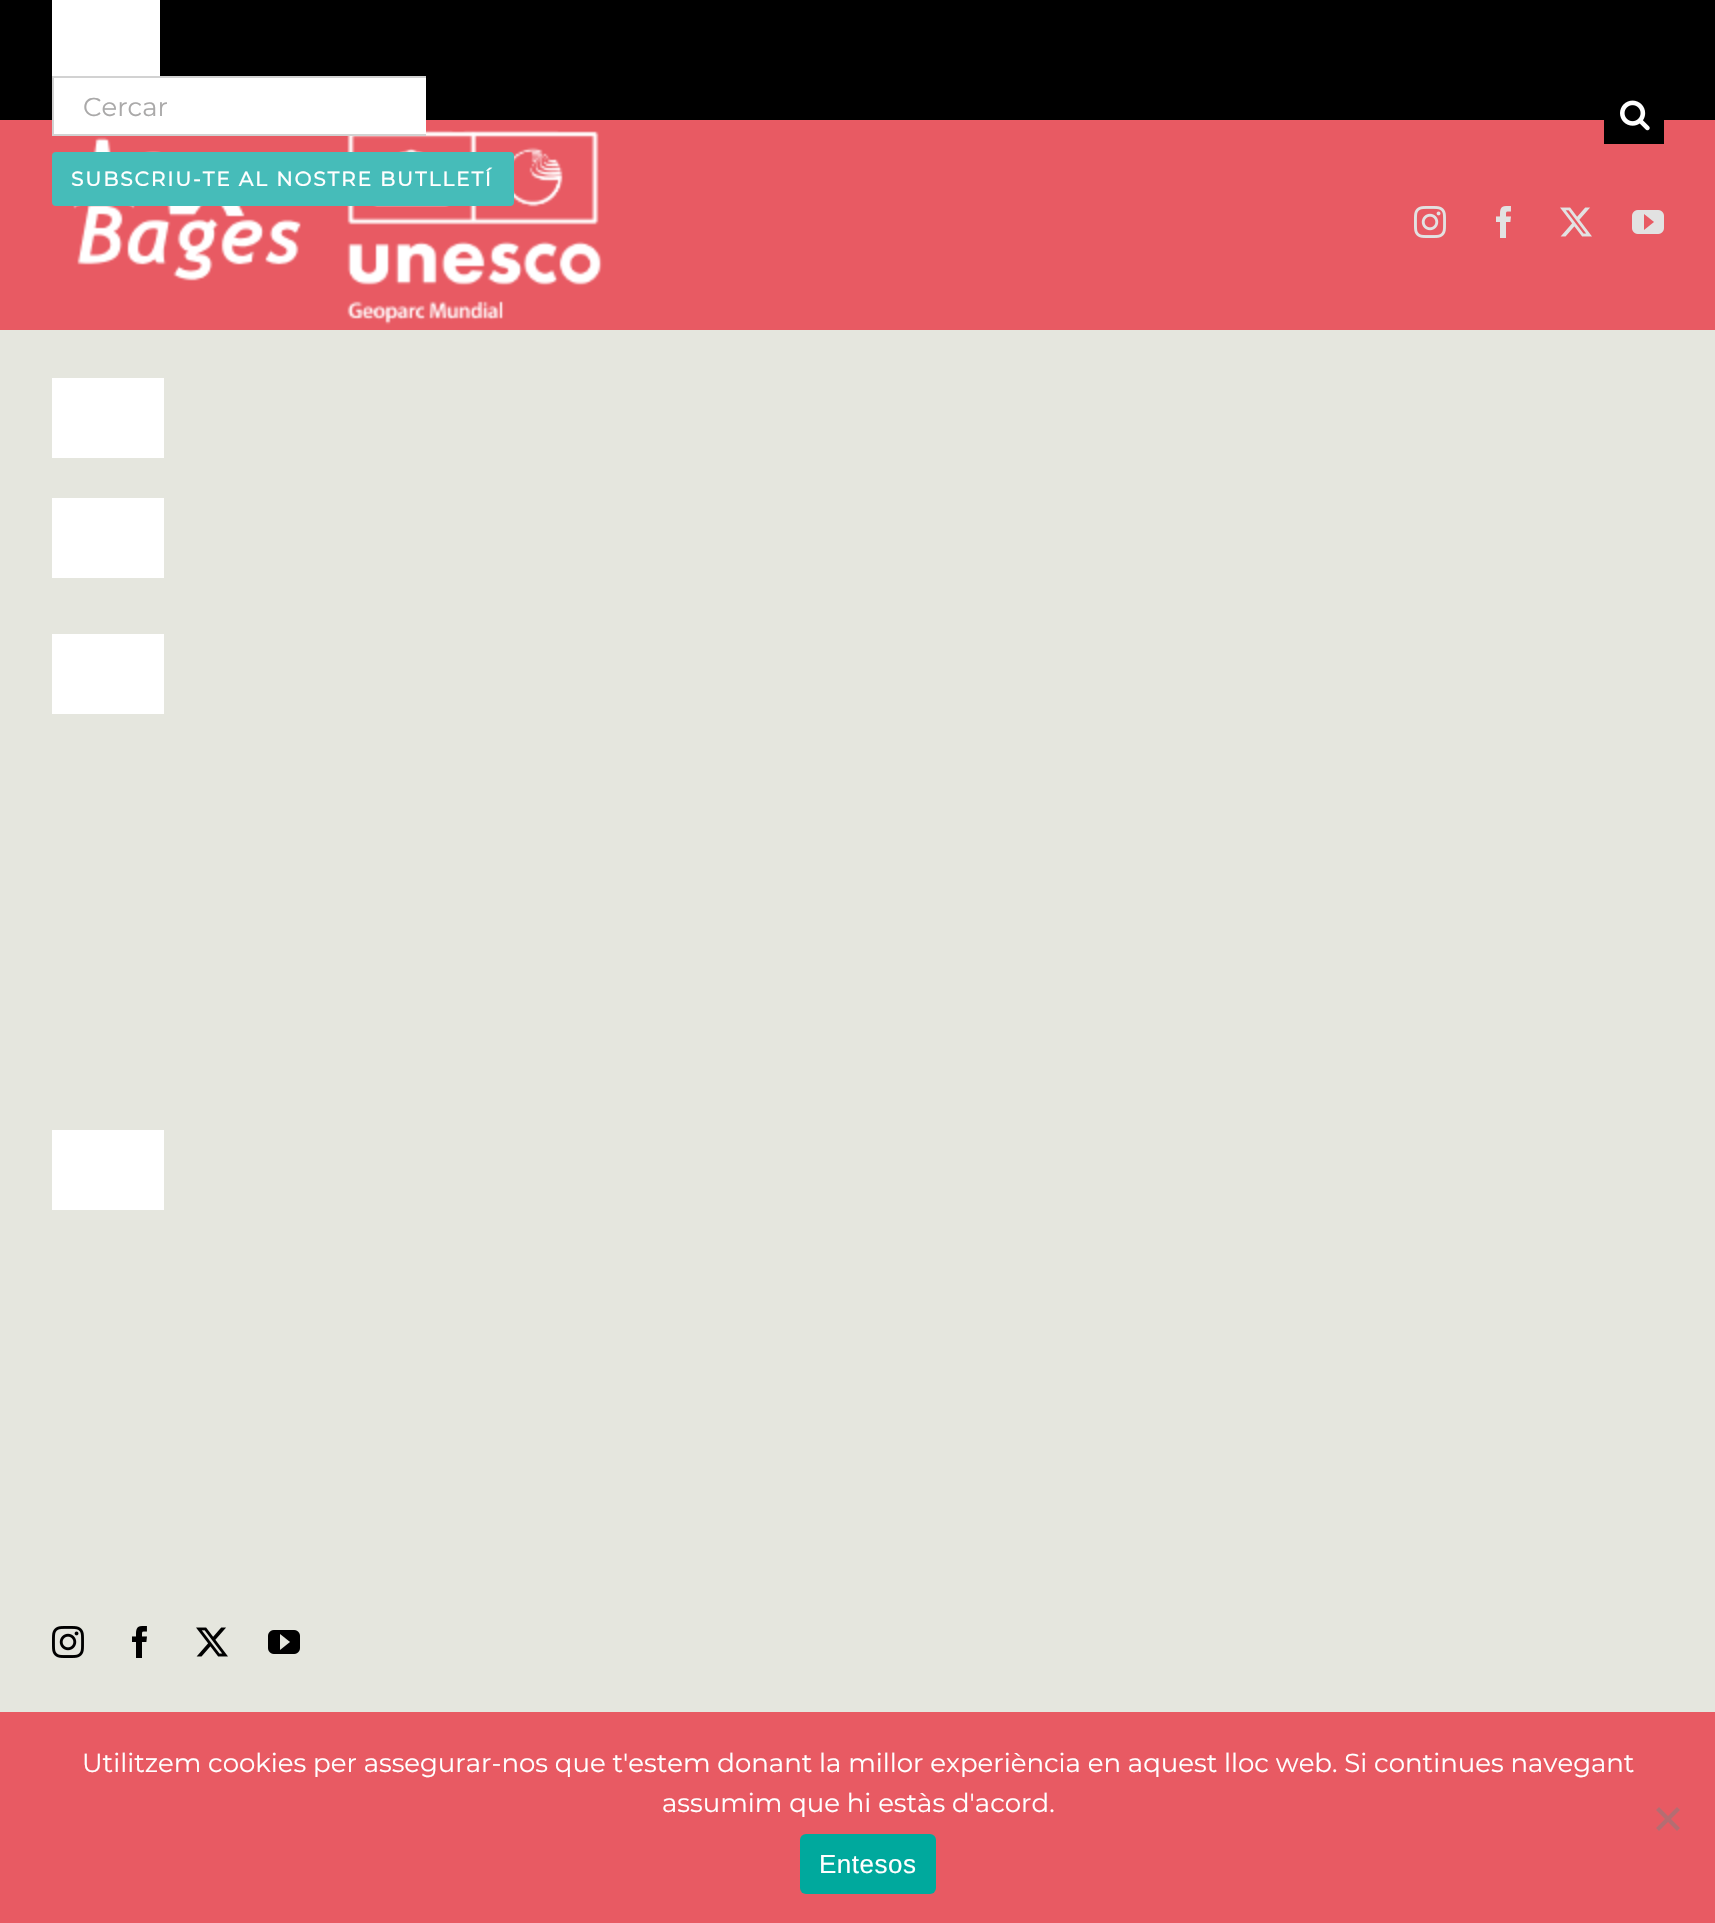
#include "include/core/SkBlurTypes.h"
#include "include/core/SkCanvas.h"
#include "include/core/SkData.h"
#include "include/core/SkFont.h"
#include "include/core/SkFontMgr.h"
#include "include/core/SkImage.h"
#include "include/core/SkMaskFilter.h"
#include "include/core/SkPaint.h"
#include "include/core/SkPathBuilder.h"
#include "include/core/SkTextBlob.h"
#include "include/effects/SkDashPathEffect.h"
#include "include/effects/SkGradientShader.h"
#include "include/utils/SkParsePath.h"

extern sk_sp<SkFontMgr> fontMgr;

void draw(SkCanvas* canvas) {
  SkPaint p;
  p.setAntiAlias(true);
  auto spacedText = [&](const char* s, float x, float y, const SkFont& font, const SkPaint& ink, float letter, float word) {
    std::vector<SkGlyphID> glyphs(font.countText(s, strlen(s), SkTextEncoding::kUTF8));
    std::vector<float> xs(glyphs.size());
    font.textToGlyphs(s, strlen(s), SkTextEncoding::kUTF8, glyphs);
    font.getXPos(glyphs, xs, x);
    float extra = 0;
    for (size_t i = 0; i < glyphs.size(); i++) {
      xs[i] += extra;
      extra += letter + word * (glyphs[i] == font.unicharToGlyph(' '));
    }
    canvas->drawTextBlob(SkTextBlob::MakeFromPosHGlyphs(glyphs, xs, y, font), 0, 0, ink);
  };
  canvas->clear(SkColorSetRGB(229, 230, 222));
  p.setColor(SK_ColorBLACK);
  canvas->drawRect(SkRect::MakeLTRB(0, 0, 1715, 120), p);
  p.setColor(SK_ColorWHITE);
  canvas->drawRect(SkRect::MakeLTRB(52, 0, 160, 76), p);
  p.setColor(SkColorSetRGB(232, 90, 99));
  canvas->drawRect(SkRect::MakeLTRB(0, 120, 1715, 330), p);
  canvas->drawImageRect(SkImages::DeferredFromEncodedData(SkData::MakeFromFileName("images/6.png")), SkRect::MakeLTRB(73, 130, 603, 325), SkSamplingOptions());
  p.setColor(SK_ColorWHITE);
  canvas->drawRect(SkRect::MakeLTRB(54, 78, 426, 134), p);
  p.setColor(SkColorSetRGB(210, 210, 210));
  canvas->drawRect(SkRect::MakeLTRB(52, 76, 426, 78), p);
  canvas->drawRect(SkRect::MakeLTRB(52, 134, 426, 136), p);
  canvas->drawRect(SkRect::MakeLTRB(52, 76, 54, 136), p);
  p.setColor(SK_ColorBLACK);
  canvas->drawRect(SkRect::MakeLTRB(1604, 120, 1664, 144), p);
  canvas->drawImageRect(SkImages::DeferredFromEncodedData(SkData::MakeFromFileName("images/1.png")), SkRect::MakeLTRB(1620, 100, 1650, 131), SkSamplingOptions());
  p.setColor(SkColorSetRGB(70, 188, 185));
  canvas->drawRoundRect(SkRect::MakeLTRB(52, 152, 514, 206), 4, 4, p);
  canvas->drawImageRect(SkImages::DeferredFromEncodedData(SkData::MakeFromFileName("images/2.png")), SkRect::MakeLTRB(1414, 206, 1446, 238), SkSamplingOptions());
  canvas->drawImageRect(SkImages::DeferredFromEncodedData(SkData::MakeFromFileName("images/3.png")), SkRect::MakeLTRB(1496, 206, 1511, 238), SkSamplingOptions());
  canvas->drawImageRect(SkImages::DeferredFromEncodedData(SkData::MakeFromFileName("images/4.png")), SkRect::MakeLTRB(1560, 207, 1592, 237), SkSamplingOptions());
  canvas->drawImageRect(SkImages::DeferredFromEncodedData(SkData::MakeFromFileName("images/5.png")), SkRect::MakeLTRB(1632, 210, 1664, 234), SkSamplingOptions());
  p.setColor(SK_ColorWHITE);
  canvas->drawRect(SkRect::MakeLTRB(52, 378, 164, 458), p);
  canvas->drawRect(SkRect::MakeLTRB(52, 498, 164, 578), p);
  canvas->drawRect(SkRect::MakeLTRB(52, 634, 164, 714), p);
  canvas->drawRect(SkRect::MakeLTRB(52, 1130, 164, 1210), p);
  canvas->drawImageRect(SkImages::DeferredFromEncodedData(SkData::MakeFromFileName("images/7.png")), SkRect::MakeLTRB(52, 1626, 84, 1658), SkSamplingOptions());
  canvas->drawImageRect(SkImages::DeferredFromEncodedData(SkData::MakeFromFileName("images/8.png")), SkRect::MakeLTRB(132, 1626, 147, 1658), SkSamplingOptions());
  canvas->drawImageRect(SkImages::DeferredFromEncodedData(SkData::MakeFromFileName("images/9.png")), SkRect::MakeLTRB(196, 1627, 228, 1657), SkSamplingOptions());
  canvas->drawImageRect(SkImages::DeferredFromEncodedData(SkData::MakeFromFileName("images/10.png")), SkRect::MakeLTRB(268, 1630, 300, 1654), SkSamplingOptions());
  p.setColor(SkColorSetRGB(232, 90, 99));
  canvas->drawRect(SkRect::MakeLTRB(0, 1712, 1715, 1923), p);
  p.setColor(SkColorSetRGB(180, 109, 114));
  canvas->drawPath(SkPathBuilder().moveTo(1677, 1807).lineTo(1680, 1810).lineTo(1659, 1831).lineTo(1656, 1828).close().detach(), p);
  canvas->drawPath(SkPathBuilder().moveTo(1656, 1810).lineTo(1659, 1807).lineTo(1680, 1828).lineTo(1677, 1831).close().detach(), p);
  p.setColor(SkColorSetRGB(0, 169, 157));
  canvas->drawRoundRect(SkRect::MakeLTRB(800, 1834, 936, 1894), 6, 6, p);
  SkFont font1(fontMgr->matchFamilyStyle("Montserrat", SkFontStyle(100, SkFontStyle::kNormal_Width, SkFontStyle::kUpright_Slant)), 26);
  font1.setSubpixel(true);
  p.setColor(SkColorSetRGB(170, 169, 169));
  canvas->drawString("Cercar", 83, 116, font1, p);
  SkFont font2(fontMgr->matchFamilyStyle("Montserrat", SkFontStyle::Bold()), 20);
  font2.setSubpixel(true);
  p.setColor(SK_ColorWHITE);
  spacedText("SUBSCRIU-TE AL NOSTRE BUTLLETÍ", 71, 186, font2, p, 2, 0);
  canvas->drawString("Utilitzem cookies per assegurar-nos que t'estem donant la millor experiència en aquest lloc web. Si continues navegant", 82, 1772, font1, p);
  canvas->drawString("assumim que hi estàs d'acord.", 662, 1812, font1, p);
  SkFont font3(fontMgr->matchFamilyStyle("Liberation Sans", SkFontStyle::Normal()), 26);
  font3.setSubpixel(true);
  spacedText("Entesos", 819, 1873, font3, p, 0.5f, 0);
}
